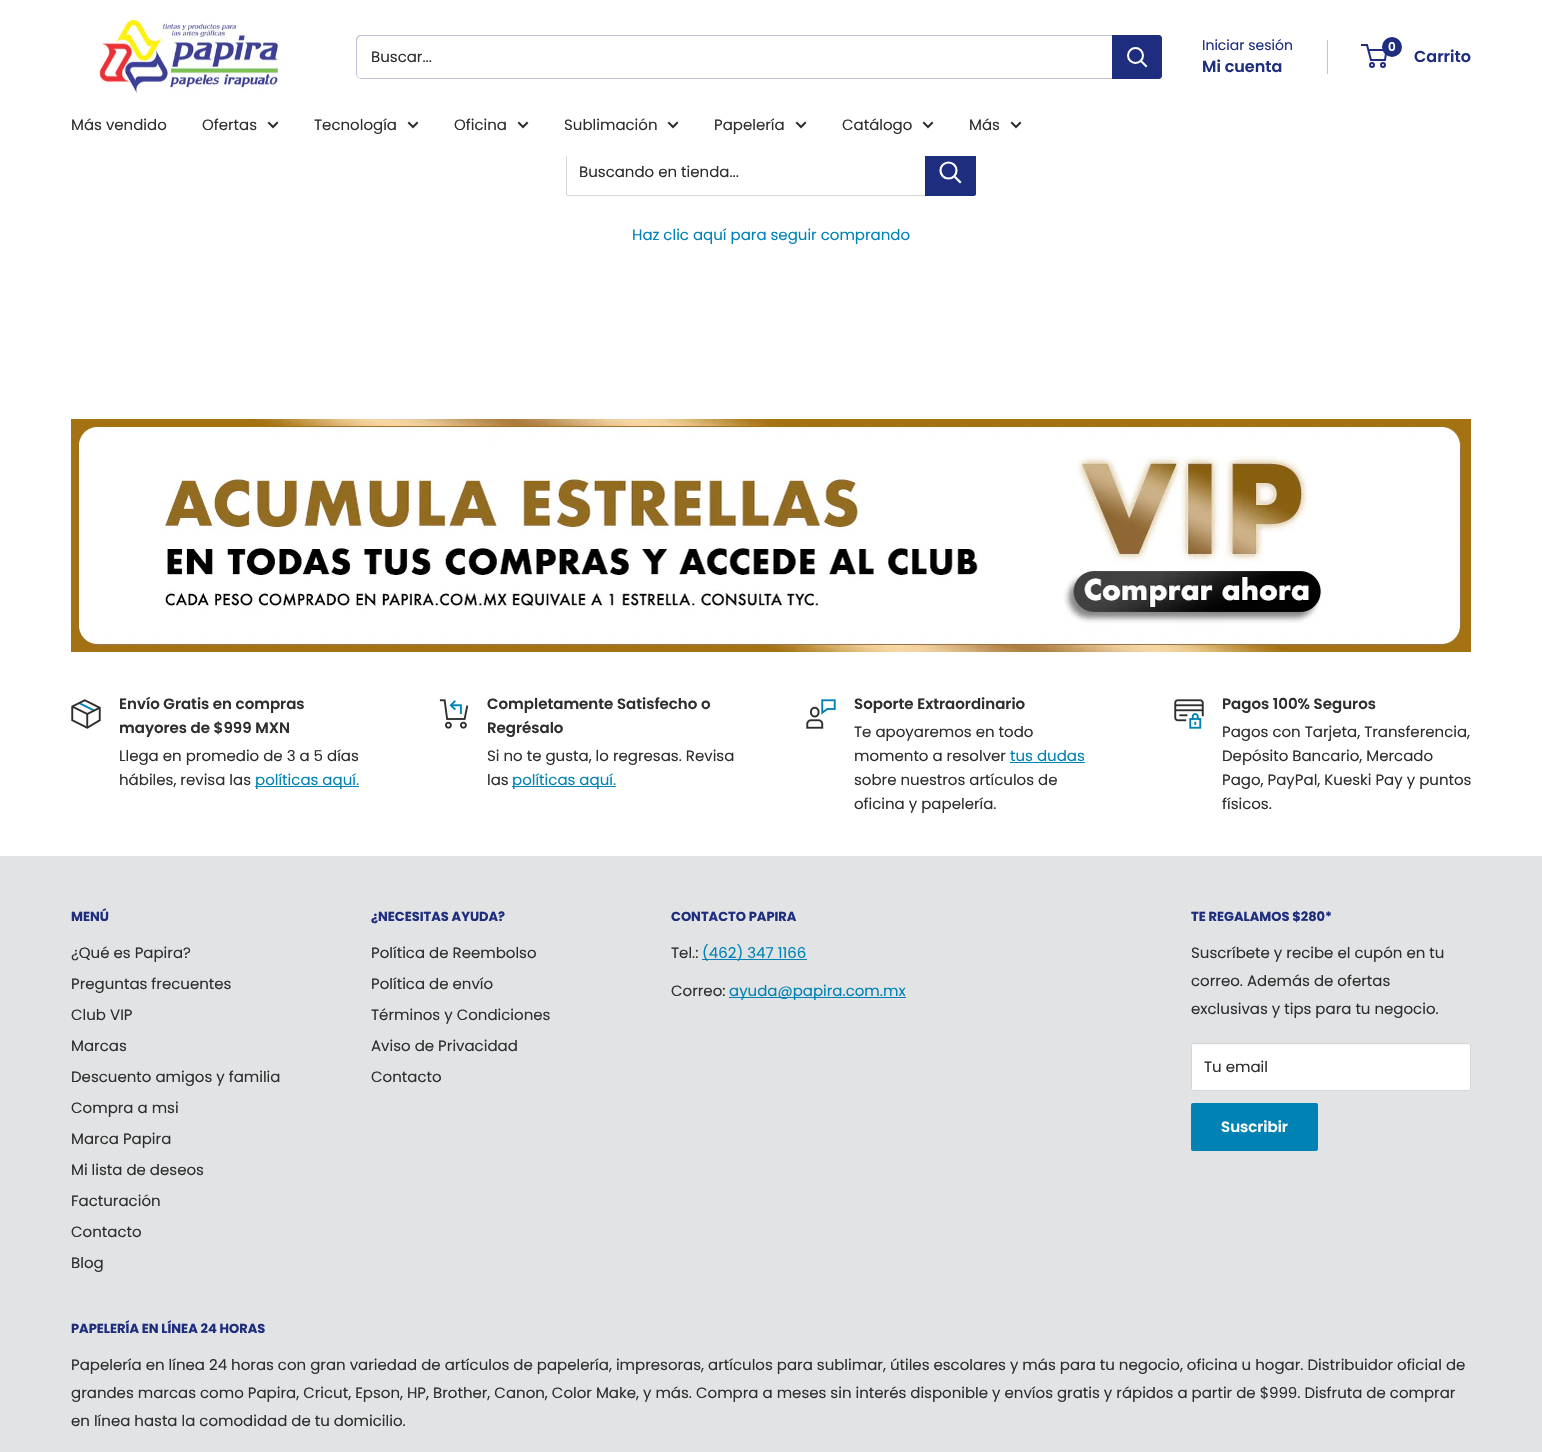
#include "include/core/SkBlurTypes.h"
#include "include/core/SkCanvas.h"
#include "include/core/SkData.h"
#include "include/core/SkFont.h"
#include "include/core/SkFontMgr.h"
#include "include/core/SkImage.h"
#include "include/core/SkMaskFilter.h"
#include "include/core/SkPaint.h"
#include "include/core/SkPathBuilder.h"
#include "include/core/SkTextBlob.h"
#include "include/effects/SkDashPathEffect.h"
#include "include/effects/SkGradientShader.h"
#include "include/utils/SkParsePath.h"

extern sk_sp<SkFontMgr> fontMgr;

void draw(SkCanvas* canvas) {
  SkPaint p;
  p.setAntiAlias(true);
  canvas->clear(SK_ColorWHITE);
  canvas->drawImageRect(SkImages::DeferredFromEncodedData(SkData::MakeFromFileName("images/1.png")), SkRect::MakeLTRB(96, 20, 281, 94), SkSamplingOptions());
  p.setColor(SkColorSetRGB(188, 192, 216));
  canvas->drawPath(SkPathBuilder().moveTo(357, 77).cubicTo(358, 78, 360, 79, 361, 79).lineTo(1157, 79).cubicTo(1160, 79, 1162, 77, 1162, 74).lineTo(1162, 40).cubicTo(1162, 39, 1161, 37, 1160, 36).lineTo(1161, 39).lineTo(1161, 73).cubicTo(1161, 76, 1159, 78, 1156, 78).lineTo(360, 78).close().detach(), p);
  canvas->drawPath(SkPathBuilder().moveTo(362, 36).lineTo(1158, 36).lineTo(1161, 37).cubicTo(1160, 36, 1158, 35, 1157, 35).lineTo(361, 35).cubicTo(358, 35, 356, 37, 356, 40).lineTo(356, 74).cubicTo(356, 75, 357, 77, 358, 78).lineTo(357, 75).lineTo(357, 41).cubicTo(357, 38, 359, 36, 362, 36).close().detach(), p);
  p.setColor(SkColorSetRGB(30, 45, 125));
  canvas->drawPath(SkPathBuilder().moveTo(1112, 35).lineTo(1159, 35).cubicTo(1160.5f, 35, 1162, 36.5f, 1162, 38).lineTo(1162, 76).cubicTo(1162, 77.5f, 1160.5f, 79, 1159, 79).lineTo(1112, 79).close().detach(), p);
  p.setStyle(SkPaint::kStroke_Style);
  p.setStrokeWidth(2);
  p.setStrokeCap(SkPaint::kSquare_Cap);
  p.setColor(SK_ColorWHITE);
  canvas->drawPath(SkPathBuilder().moveTo(1146, 66).lineTo(1141, 61).detach(), p);
  p.setStrokeCap(SkPaint::kButt_Cap);
  canvas->drawCircle(1135.5f, 55.5f, 7.5f, p);
  p.setStyle(SkPaint::kFill_Style);
  p.setColor(SkColorSetRGB(188, 192, 216));
  canvas->drawRect(SkRect::MakeLTRB(1327, 40, 1328, 74), p);
  p.setStyle(SkPaint::kStroke_Style);
  p.setColor(SkColorSetRGB(30, 45, 125));
  canvas->drawCircle(1372, 65, 2, p);
  canvas->drawCircle(1383, 65, 2, p);
  canvas->drawPath(SkPathBuilder().moveTo(1368.5f, 50).lineTo(1386.5f, 50).lineTo(1385, 60).lineTo(1371, 60).lineTo(1367, 45).lineTo(1361, 45).detach(), p);
  p.setStyle(SkPaint::kFill_Style);
  canvas->drawCircle(1392, 47, 10, p);
  p.setColor(SkColorSetRGB(212, 214, 216));
  canvas->drawRect(SkRect::MakeLTRB(566, 149, 567, 195), p);
  p.setColor(SkColorSetRGB(30, 45, 125));
  canvas->drawPath(SkPathBuilder().moveTo(925, 148).lineTo(974, 148).cubicTo(975, 148, 976, 149, 976, 150).lineTo(976, 194).cubicTo(976, 195, 975, 196, 974, 196).lineTo(925, 196).close().detach(), p);
  p.setColor(SK_ColorWHITE);
  canvas->drawRect(SkRect::MakeLTRB(566, 148, 976, 156), p);
  p.setStyle(SkPaint::kStroke_Style);
  p.setStrokeCap(SkPaint::kSquare_Cap);
  p.setColor(SkColorSetRGB(46, 46, 46));
  canvas->drawPath(SkPathBuilder().moveTo(277, 123).lineTo(273, 127).lineTo(269, 123).detach(), p);
  canvas->drawPath(SkPathBuilder().moveTo(417, 123).lineTo(413, 127).lineTo(409, 123).detach(), p);
  canvas->drawPath(SkPathBuilder().moveTo(527, 123).lineTo(523, 127).lineTo(519, 123).detach(), p);
  canvas->drawPath(SkPathBuilder().moveTo(677, 123).lineTo(673, 127).lineTo(669, 123).detach(), p);
  canvas->drawPath(SkPathBuilder().moveTo(805, 123).lineTo(801, 127).lineTo(797, 123).detach(), p);
  canvas->drawPath(SkPathBuilder().moveTo(932, 123).lineTo(928, 127).lineTo(924, 123).detach(), p);
  canvas->drawPath(SkPathBuilder().moveTo(1020, 123).lineTo(1016, 127).lineTo(1012, 123).detach(), p);
  p.setStyle(SkPaint::kFill_Style);
  p.setColor(SkColorSetRGB(212, 214, 216));
  canvas->drawRect(SkRect::MakeLTRB(567, 195, 925, 196), p);
  p.setStyle(SkPaint::kStroke_Style);
  p.setStrokeWidth(2.2f);
  p.setColor(SK_ColorWHITE);
  canvas->drawPath(SkPathBuilder().moveTo(960, 182).lineTo(954.5f, 176.5f).detach(), p);
  p.setStrokeCap(SkPaint::kButt_Cap);
  canvas->drawCircle(948.5f, 170.5f, 8, p);
  canvas->drawImageRect(SkImages::DeferredFromEncodedData(SkData::MakeFromFileName("images/2.png")), SkRect::MakeLTRB(71, 419, 1471, 652), SkSamplingOptions());
  canvas->drawImageRect(SkImages::DeferredFromEncodedData(SkData::MakeFromFileName("images/3.png")), SkRect::MakeLTRB(71, 699, 101, 729), SkSamplingOptions());
  p.setStyle(SkPaint::kFill_Style);
  p.setColor(SkColorSetRGB(0, 131, 180));
  canvas->drawRect(SkRect::MakeLTRB(255, 786, 359, 787), p);
  canvas->drawImageRect(SkImages::DeferredFromEncodedData(SkData::MakeFromFileName("images/4.png")), SkRect::MakeLTRB(439, 699, 469, 729), SkSamplingOptions());
  canvas->drawRect(SkRect::MakeLTRB(512, 786, 616, 787), p);
  canvas->drawImageRect(SkImages::DeferredFromEncodedData(SkData::MakeFromFileName("images/5.png")), SkRect::MakeLTRB(806, 699, 836, 729), SkSamplingOptions());
  canvas->drawRect(SkRect::MakeLTRB(1010, 762, 1085, 763), p);
  canvas->drawImageRect(SkImages::DeferredFromEncodedData(SkData::MakeFromFileName("images/6.png")), SkRect::MakeLTRB(1174, 699, 1204, 729), SkSamplingOptions());
  p.setColor(SkColorSetRGB(225, 227, 228));
  canvas->drawRect(SkRect::MakeLTRB(0, 856, 1542, 1452), p);
  p.setColor(SkColorSetRGB(0, 131, 180));
  canvas->drawRect(SkRect::MakeLTRB(702, 959, 807, 960), p);
  canvas->drawRect(SkRect::MakeLTRB(729, 997, 906, 998), p);
  p.setColor(SK_ColorWHITE);
  canvas->drawRoundRect(SkRect::MakeLTRB(1191, 1043, 1471, 1091), 2, 2, p);
  p.setColor(SkColorSetRGB(248, 248, 248));
  canvas->drawPath(SkPathBuilder().moveTo(1193, 1045).lineTo(1469, 1045).cubicTo(1470, 1045, 1470, 1045, 1470, 1046).cubicTo(1470, 1045, 1470, 1044, 1469, 1044).lineTo(1193, 1044).lineTo(1192, 1044).lineTo(1192, 1046).cubicTo(1192, 1045, 1192, 1045, 1193, 1045).close().detach(), p);
  p.setStyle(SkPaint::kStroke_Style);
  p.setStrokeWidth(1);
  p.setColor(SkColorSetRGB(212, 214, 216));
  canvas->drawRoundRect(SkRect::MakeLTRB(1191.5f, 1043.5f, 1470.5f, 1090.5f), 1.5f, 1.5f, p);
  p.setStyle(SkPaint::kFill_Style);
  p.setColor(SkColorSetRGB(0, 131, 180));
  canvas->drawRoundRect(SkRect::MakeLTRB(1191, 1103, 1318, 1151), 2, 2, p);
  SkFont font1(fontMgr->matchFamilyStyle("Poppins", SkFontStyle::Normal()), 15);
  font1.setSubpixel(true);
  p.setColor(SkColorSetRGB(46, 46, 46));
  canvas->drawString("Buscar...", 371, 62, font1, p);
  SkFont font2(fontMgr->matchFamilyStyle("Poppins", SkFontStyle::Normal()), 14);
  font2.setSubpixel(true);
  p.setColor(SkColorSetRGB(30, 45, 125));
  canvas->drawString("Iniciar sesión", 1202, 50, font2, p);
  SkFont font3(fontMgr->matchFamilyStyle("Poppins", SkFontStyle(600, SkFontStyle::kNormal_Width, SkFontStyle::kUpright_Slant)), 16);
  font3.setSubpixel(true);
  canvas->drawString("Mi cuenta", 1202, 72, font3, p);
  SkFont font4(fontMgr->matchFamilyStyle("Poppins", SkFontStyle(600, SkFontStyle::kNormal_Width, SkFontStyle::kUpright_Slant)), 12);
  font4.setSubpixel(true);
  p.setColor(SK_ColorWHITE);
  canvas->drawString("0", 1388, 51, font4, p);
  p.setColor(SkColorSetRGB(30, 45, 125));
  canvas->drawString("Carrito", 1414, 62, font3, p);
  p.setColor(SkColorSetRGB(46, 46, 46));
  canvas->drawString("Más vendido", 71, 130, font1, p);
  canvas->drawString("Ofertas", 202, 130, font1, p);
  canvas->drawString("Tecnología", 314, 130, font1, p);
  canvas->drawString("Oficina", 454, 130, font1, p);
  canvas->drawString("Sublimación", 564, 130, font1, p);
  canvas->drawString("Papelería", 714, 130, font1, p);
  canvas->drawString("Catálogo", 842, 130, font1, p);
  canvas->drawString("Más", 969, 130, font1, p);
  canvas->drawString("Buscando en tienda...", 579, 177, font1, p);
  p.setColor(SkColorSetRGB(0, 131, 180));
  canvas->drawString("Haz clic aquí para seguir comprando", 632, 240, font1, p);
  SkFont font5(fontMgr->matchFamilyStyle("Poppins", SkFontStyle(600, SkFontStyle::kNormal_Width, SkFontStyle::kUpright_Slant)), 15);
  font5.setSubpixel(true);
  p.setColor(SkColorSetRGB(46, 46, 46));
  canvas->drawString("Envío Gratis en compras", 119, 709, font5, p);
  canvas->drawString("mayores de $999 MXN", 119, 733, font5, p);
  canvas->drawString("Llega en promedio de 3 a 5 días", 119, 761, font1, p);
  canvas->drawString("hábiles, revisa las", 119, 785, font1, p);
  p.setColor(SkColorSetRGB(0, 131, 180));
  canvas->drawString("políticas aquí.", 255, 785, font1, p);
  p.setColor(SkColorSetRGB(46, 46, 46));
  canvas->drawString("Completamente Satisfecho o", 487, 709, font5, p);
  canvas->drawString("Regrésalo", 487, 733, font5, p);
  canvas->drawString("Si no te gusta, lo regresas. Revisa", 487, 761, font1, p);
  canvas->drawString("las", 487, 785, font1, p);
  p.setColor(SkColorSetRGB(0, 131, 180));
  canvas->drawString("políticas aquí.", 512, 785, font1, p);
  p.setColor(SkColorSetRGB(46, 46, 46));
  canvas->drawString("Soporte Extraordinario", 854, 709, font5, p);
  canvas->drawString("Te apoyaremos en todo", 854, 737, font1, p);
  canvas->drawString("momento a resolver", 854, 761, font1, p);
  p.setColor(SkColorSetRGB(0, 131, 180));
  canvas->drawString("tus dudas", 1010, 761, font1, p);
  p.setColor(SkColorSetRGB(46, 46, 46));
  canvas->drawString("sobre nuestros artículos de", 854, 785, font1, p);
  canvas->drawString("oficina y papelería.", 854, 809, font1, p);
  canvas->drawString("Pagos 100% Seguros", 1222, 709, font5, p);
  canvas->drawString("Pagos con Tarjeta, Transferencia,", 1222, 737, font1, p);
  canvas->drawString("Depósito Bancario, Mercado", 1222, 761, font1, p);
  canvas->drawString("Pago, PayPal, Kueski Pay y puntos", 1222, 785, font1, p);
  canvas->drawString("físicos.", 1222, 809, font1, p);
  SkFont font6(fontMgr->matchFamilyStyle("Poppins", SkFontStyle::Bold()), 13);
  font6.setSubpixel(true);
  p.setColor(SkColorSetRGB(30, 45, 125));
  canvas->drawString("MENÚ", 71, 921, font6, p);
  p.setColor(SkColorSetRGB(46, 46, 46));
  canvas->drawString("¿Qué es Papira?", 71, 958, font1, p);
  canvas->drawString("Preguntas frecuentes", 71, 989, font1, p);
  canvas->drawString("Club VIP", 71, 1020, font1, p);
  canvas->drawString("Marcas", 71, 1051, font1, p);
  canvas->drawString("Descuento amigos y familia", 71, 1082, font1, p);
  canvas->drawString("Compra a msi", 71, 1113, font1, p);
  canvas->drawString("Marca Papira", 71, 1144, font1, p);
  canvas->drawString("Mi lista de deseos", 71, 1175, font1, p);
  canvas->drawString("Facturación", 71, 1206, font1, p);
  canvas->drawString("Contacto", 71, 1237, font1, p);
  canvas->drawString("Blog", 71, 1268, font1, p);
  p.setColor(SkColorSetRGB(30, 45, 125));
  canvas->drawString("¿NECESITAS AYUDA?", 371, 921, font6, p);
  p.setColor(SkColorSetRGB(46, 46, 46));
  canvas->drawString("Política de Reembolso", 371, 958, font1, p);
  canvas->drawString("Política de envío", 371, 989, font1, p);
  canvas->drawString("Términos y Condiciones", 371, 1020, font1, p);
  canvas->drawString("Aviso de Privacidad", 371, 1051, font1, p);
  canvas->drawString("Contacto", 371, 1082, font1, p);
  p.setColor(SkColorSetRGB(30, 45, 125));
  canvas->drawString("CONTACTO PAPIRA", 671, 921, font6, p);
  p.setColor(SkColorSetRGB(46, 46, 46));
  canvas->drawString("Tel.:", 671, 958, font1, p);
  p.setColor(SkColorSetRGB(0, 131, 180));
  canvas->drawString("(462) 347 1166", 702, 958, font1, p);
  p.setColor(SkColorSetRGB(46, 46, 46));
  canvas->drawString("Correo:", 671, 996, font1, p);
  p.setColor(SkColorSetRGB(0, 131, 180));
  canvas->drawString("ayuda@papira.com.mx", 729, 996, font1, p);
  p.setColor(SkColorSetRGB(30, 45, 125));
  canvas->drawString("TE REGALAMOS $280*", 1191, 921, font6, p);
  p.setColor(SkColorSetRGB(46, 46, 46));
  canvas->drawString("Suscríbete y recibe el cupón en tu", 1191, 958, font1, p);
  canvas->drawString("correo. Además de ofertas", 1191, 986, font1, p);
  canvas->drawString("exclusivas y tips para tu negocio.", 1191, 1014, font1, p);
  canvas->drawString("Tu email", 1204, 1072, font1, p);
  p.setColor(SK_ColorWHITE);
  canvas->drawString("Suscribir", 1221, 1132, font5, p);
  p.setColor(SkColorSetRGB(30, 45, 125));
  canvas->drawString("PAPELERÍA EN LÍNEA 24 HORAS", 71, 1333, font6, p);
  p.setColor(SkColorSetRGB(46, 46, 46));
  canvas->drawString("Papelería en línea 24 horas con gran variedad de artículos de papelería, impresoras, artículos para sublimar, útiles escolares y más para tu negocio, oficina u hogar. Distribuidor oficial de", 71, 1370, font1, p);
  canvas->drawString("grandes marcas como Papira, Cricut, Epson, HP, Brother, Canon, Color Make, y más. Compra a meses sin interés disponible y envíos gratis y rápidos a partir de $999. Disfruta de comprar", 71, 1398, font1, p);
  canvas->drawString("en línea hasta la comodidad de tu domicilio.", 71, 1426, font1, p);
}
